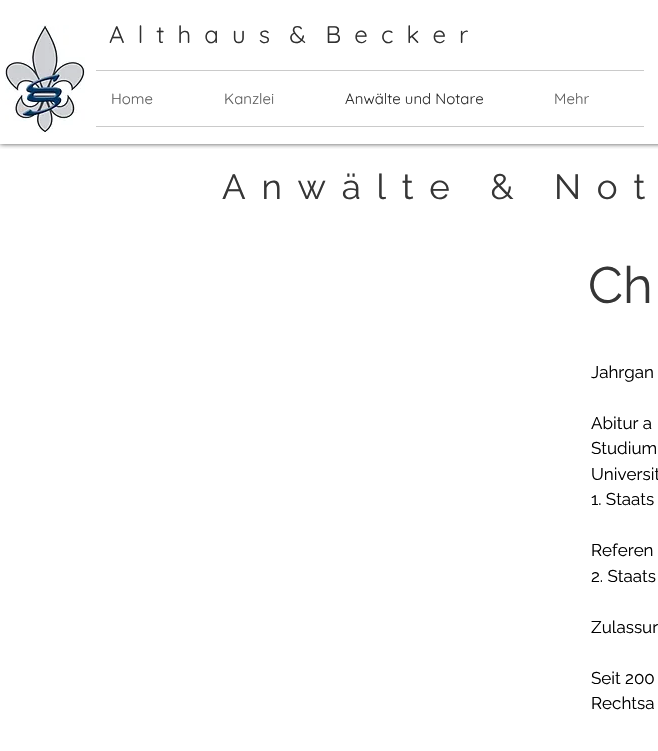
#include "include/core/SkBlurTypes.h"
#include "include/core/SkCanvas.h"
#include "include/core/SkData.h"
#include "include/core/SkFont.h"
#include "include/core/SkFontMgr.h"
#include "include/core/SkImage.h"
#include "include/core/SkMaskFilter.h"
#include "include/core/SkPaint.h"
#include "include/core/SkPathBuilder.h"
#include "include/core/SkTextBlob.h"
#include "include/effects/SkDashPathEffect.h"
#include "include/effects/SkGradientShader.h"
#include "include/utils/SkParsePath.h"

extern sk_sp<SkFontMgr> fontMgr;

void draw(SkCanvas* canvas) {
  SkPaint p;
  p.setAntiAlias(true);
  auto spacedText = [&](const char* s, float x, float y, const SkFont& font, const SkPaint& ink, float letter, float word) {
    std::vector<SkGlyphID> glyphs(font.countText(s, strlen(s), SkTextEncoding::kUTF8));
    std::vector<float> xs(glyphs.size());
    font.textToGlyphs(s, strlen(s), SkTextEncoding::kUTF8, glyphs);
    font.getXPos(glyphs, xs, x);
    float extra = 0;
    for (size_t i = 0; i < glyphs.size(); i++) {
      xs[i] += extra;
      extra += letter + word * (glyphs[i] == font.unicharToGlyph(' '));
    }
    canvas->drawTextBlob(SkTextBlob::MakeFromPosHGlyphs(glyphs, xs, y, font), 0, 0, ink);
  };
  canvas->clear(SK_ColorWHITE);
  canvas->save();
  canvas->clipRect(SkRect::MakeLTRB(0, 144, 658, 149));
  p.setColor(SkColorSetARGB(179, 0, 0, 0));
  p.setMaskFilter(SkMaskFilter::MakeBlur(kNormal_SkBlurStyle, 2.5f));
  canvas->drawRect(SkRect::MakeLTRB(0, 0, 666, 144), p);
  p.setMaskFilter(nullptr);
  canvas->restore();
  canvas->drawImageRect(SkImages::DeferredFromEncodedData(SkData::MakeFromFileName("images/1.png")), SkRect::MakeLTRB(5, 25, 85, 133), SkSamplingOptions());
  p.setColor(SkColorSetRGB(202, 202, 202));
  canvas->drawRect(SkRect::MakeLTRB(96, 70, 644, 71), p);
  canvas->drawRect(SkRect::MakeLTRB(96, 126, 644, 127), p);
  SkFont font1(fontMgr->matchFamilyStyle("Quicksand", SkFontStyle::Normal()), 24);
  font1.setSubpixel(true);
  p.setColor(SkColorSetRGB(48, 48, 48));
  canvas->drawString("A  l  t  h  a  u  s   &   B  e  c  k  e  r", 109, 43, font1, p);
  SkFont font2(fontMgr->matchFamilyStyle("Quicksand", SkFontStyle::Normal()), 15);
  font2.setSubpixel(true);
  p.setColor(SkColorSetRGB(96, 96, 96));
  canvas->drawString("Home", 111, 104, font2, p);
  canvas->drawString("Kanzlei", 224, 104, font2, p);
  p.setColor(SkColorSetRGB(48, 48, 48));
  canvas->drawString("Anwälte und Notare", 345, 104, font2, p);
  p.setColor(SkColorSetRGB(96, 96, 96));
  canvas->drawString("Mehr", 554, 104, font2, p);
  SkFont font3(fontMgr->matchFamilyStyle("Raleway", SkFontStyle::Normal()), 35);
  font3.setSubpixel(true);
  p.setColor(SkColorSetRGB(54, 54, 54));
  spacedText("Anwälte & Not", 222, 199, font3, p, 15.75f, 0);
  SkFont font4(fontMgr->matchFamilyStyle("Raleway", SkFontStyle::Normal()), 51);
  font4.setSubpixel(true);
  canvas->drawString("Ch", 588, 303, font4, p);
  SkFont font5(fontMgr->matchFamilyStyle("Raleway", SkFontStyle::Normal()), 17);
  font5.setSubpixel(true);
  p.setColor(SK_ColorBLACK);
  canvas->drawString("Jahrgan", 591, 378, font5, p);
  canvas->drawString("Abitur a", 591, 429, font5, p);
  canvas->drawString("Studium", 591, 454, font5, p);
  canvas->drawString("Universit", 591, 480, font5, p);
  canvas->drawString("1. Staats", 591, 505, font5, p);
  canvas->drawString("Referen", 591, 556, font5, p);
  canvas->drawString("2. Staats", 591, 582, font5, p);
  canvas->drawString("Zulassun", 591, 633, font5, p);
  canvas->drawString("Seit 200", 591, 684, font5, p);
  canvas->drawString("Rechtsa", 591, 709, font5, p);
}
